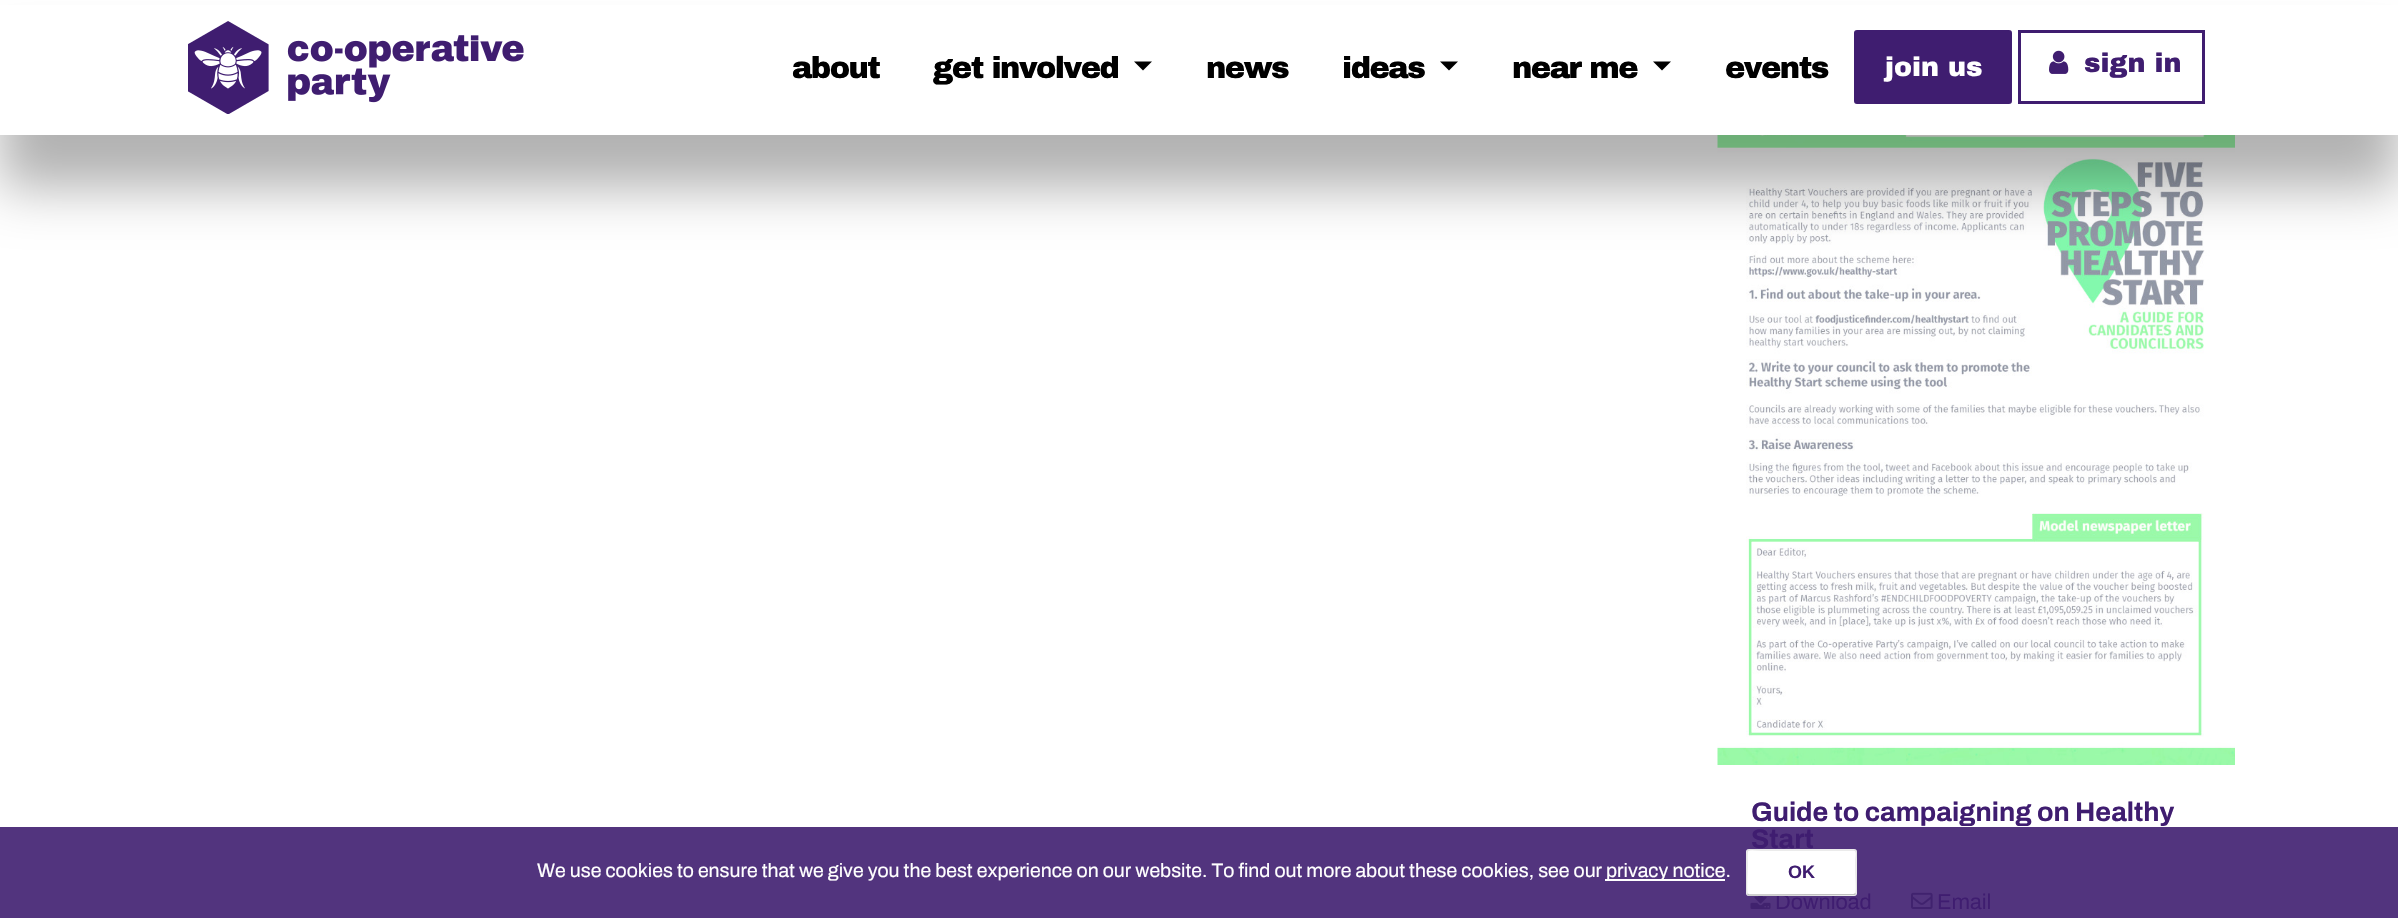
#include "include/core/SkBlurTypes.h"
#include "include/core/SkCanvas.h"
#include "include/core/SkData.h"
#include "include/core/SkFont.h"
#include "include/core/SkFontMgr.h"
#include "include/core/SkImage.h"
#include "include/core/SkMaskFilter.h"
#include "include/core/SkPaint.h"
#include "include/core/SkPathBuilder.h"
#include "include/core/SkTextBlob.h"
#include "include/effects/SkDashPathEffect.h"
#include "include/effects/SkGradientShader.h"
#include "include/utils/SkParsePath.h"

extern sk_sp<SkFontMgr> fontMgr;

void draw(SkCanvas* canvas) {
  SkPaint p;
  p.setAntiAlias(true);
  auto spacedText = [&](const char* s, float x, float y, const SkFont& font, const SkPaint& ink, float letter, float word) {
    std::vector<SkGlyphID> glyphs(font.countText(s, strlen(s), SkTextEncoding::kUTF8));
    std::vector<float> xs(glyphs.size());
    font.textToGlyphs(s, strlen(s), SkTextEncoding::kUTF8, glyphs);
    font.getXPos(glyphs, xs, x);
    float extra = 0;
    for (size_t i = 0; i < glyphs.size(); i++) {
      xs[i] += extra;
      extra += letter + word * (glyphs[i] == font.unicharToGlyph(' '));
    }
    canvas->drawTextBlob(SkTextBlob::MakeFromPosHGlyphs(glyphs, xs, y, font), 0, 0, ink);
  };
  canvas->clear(SK_ColorWHITE);
  p.setColor(SkColorSetRGB(82, 52, 126));
  canvas->drawRect(SkRect::MakeLTRB(0, 827, 2398, 918), p);
  canvas->drawImageRect(SkImages::DeferredFromEncodedData(SkData::MakeFromFileName("images/3.png")), SkRect::MakeLTRB(1717, 135, 2235, 765), SkSamplingOptions());
  p.setColor(SkColorSetARGB(77, 0, 0, 0));
  p.setMaskFilter(SkMaskFilter::MakeBlur(kNormal_SkBlurStyle, 26));
  canvas->drawRect(SkRect::MakeLTRB(0, 53, 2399, 188), p);
  p.setMaskFilter(nullptr);
  p.setColor(SK_ColorWHITE);
  canvas->drawRect(SkRect::MakeLTRB(0, 5, 2398, 135), p);
  canvas->drawImageRect(SkImages::DeferredFromEncodedData(SkData::MakeFromFileName("images/1.png")), SkRect::MakeLTRB(188, 21, 524, 114), SkSamplingOptions());
  p.setColor(SK_ColorBLACK);
  canvas->drawPath(SkPathBuilder().moveTo(1134, 61.5f).lineTo(1152, 61.5f).lineTo(1143, 70.5f).close().detach(), p);
  canvas->drawPath(SkPathBuilder().moveTo(1440, 61.5f).lineTo(1458, 61.5f).lineTo(1449, 70.5f).close().detach(), p);
  canvas->drawPath(SkPathBuilder().moveTo(1653, 61.5f).lineTo(1671, 61.5f).lineTo(1662, 70.5f).close().detach(), p);
  p.setColor(SkColorSetRGB(63, 29, 112));
  canvas->drawRoundRect(SkRect::MakeLTRB(1855.5f, 31.5f, 2010.5f, 102.5f), 1.5f, 1.5f, p);
  p.setStyle(SkPaint::kStroke_Style);
  p.setStrokeWidth(3);
  canvas->drawRoundRect(SkRect::MakeLTRB(1855.5f, 31.5f, 2010.5f, 102.5f), 1.5f, 1.5f, p);
  canvas->drawRect(SkRect::MakeLTRB(2019.5f, 31.5f, 2203.5f, 102.5f), p);
  canvas->drawImageRect(SkImages::DeferredFromEncodedData(SkData::MakeFromFileName("images/2.png")), SkRect::MakeLTRB(2049, 50, 2069, 74), SkSamplingOptions());
  canvas->drawImageRect(SkImages::DeferredFromEncodedData(SkData::MakeFromFileName("images/4.png")), SkRect::MakeLTRB(1750, 896, 1771, 909), SkSamplingOptions());
  canvas->drawImageRect(SkImages::DeferredFromEncodedData(SkData::MakeFromFileName("images/5.png")), SkRect::MakeLTRB(1911, 892, 1933, 909), SkSamplingOptions());
  p.setStyle(SkPaint::kFill_Style);
  p.setColor(SK_ColorWHITE);
  canvas->drawRect(SkRect::MakeLTRB(1605, 879, 1725, 881), p);
  SkFont font1(fontMgr->matchFamilyStyle("Archivo Black", SkFontStyle(900, SkFontStyle::kNormal_Width, SkFontStyle::kUpright_Slant)), 30.5f);
  font1.setSubpixel(true);
  p.setColor(SK_ColorBLACK);
  spacedText("about", 792, 78, font1, p, -1.5f, 0);
  spacedText("get involved", 933, 78, font1, p, -1.5f, 0);
  spacedText("news", 1206, 78, font1, p, -1.5f, 0);
  spacedText("ideas", 1342, 78, font1, p, -1.5f, 0);
  spacedText("near me", 1512, 78, font1, p, -1.5f, 0);
  spacedText("events", 1725, 78, font1, p, -1.5f, 0);
  SkFont font2(fontMgr->matchFamilyStyle("Archivo Black", SkFontStyle(900, SkFontStyle::kNormal_Width, SkFontStyle::kUpright_Slant)), 27);
  font2.setSubpixel(true);
  p.setColor(SK_ColorWHITE);
  canvas->drawString("join us", 1885, 76, font2, p);
  p.setColor(SkColorSetRGB(63, 29, 112));
  canvas->drawString("sign in", 2084, 72, font2, p);
  SkFont font3(fontMgr->matchFamilyStyle("Archivo", SkFontStyle::Bold()), 27);
  font3.setSubpixel(true);
  canvas->drawString("Guide to campaigning on Healthy", 1751, 821, font3, p);
  canvas->drawString("Start", 1751, 848, font3, p);
  SkFont font4(fontMgr->matchFamilyStyle("Archivo", SkFontStyle::Normal()), 21.5f);
  font4.setSubpixel(true);
  canvas->drawString("Download", 1775, 909, font4, p);
  canvas->drawString("Email", 1937, 909, font4, p);
  SkFont font5(fontMgr->matchFamilyStyle("Archivo", SkFontStyle::Normal()), 19.5f);
  font5.setSubpixel(true);
  p.setColor(SK_ColorWHITE);
  canvas->drawString("We use cookies to ensure that we give you the best experience on our website. To find out more about these cookies, see our", 537, 877, font5, p);
  canvas->drawString("privacy notice.", 1606, 877, font5, p);
  canvas->drawRoundRect(SkRect::MakeLTRB(1746, 849, 1857, 896), 3, 3, p);
  p.setStyle(SkPaint::kStroke_Style);
  p.setStrokeWidth(1.5f);
  p.setColor(SkColorSetARGB(64, 0, 0, 0));
  canvas->drawPath(SkPathBuilder().moveTo(1855.5f, 894).lineTo(1854, 894.5f).lineTo(1766.5f, 895).lineTo(1749, 895).lineTo(1747.5f, 894).detach(), p);
  p.setColor(SkColorSetARGB(26, 0, 0, 0));
  canvas->drawPath(SkPathBuilder().moveTo(1747.5f, 894).cubicTo(1745.5f, 892.5f, 1747, 869.5f, 1747, 865.5f).cubicTo(1747, 845, 1743.5f, 850, 1766.5f, 850).lineTo(1854, 850).cubicTo(1858, 850, 1856, 858, 1856, 859).lineTo(1856, 872).cubicTo(1856, 875.5f, 1857.5f, 892.5f, 1855.5f, 894).detach(), p);
  SkFont font6(fontMgr->matchFamilyStyle("Liberation Sans", SkFontStyle::Bold()), 18);
  font6.setSubpixel(true);
  p.setStyle(SkPaint::kFill_Style);
  p.setColor(SkColorSetRGB(63, 29, 112));
  canvas->drawString("OK", 1788, 878, font6, p);
}
